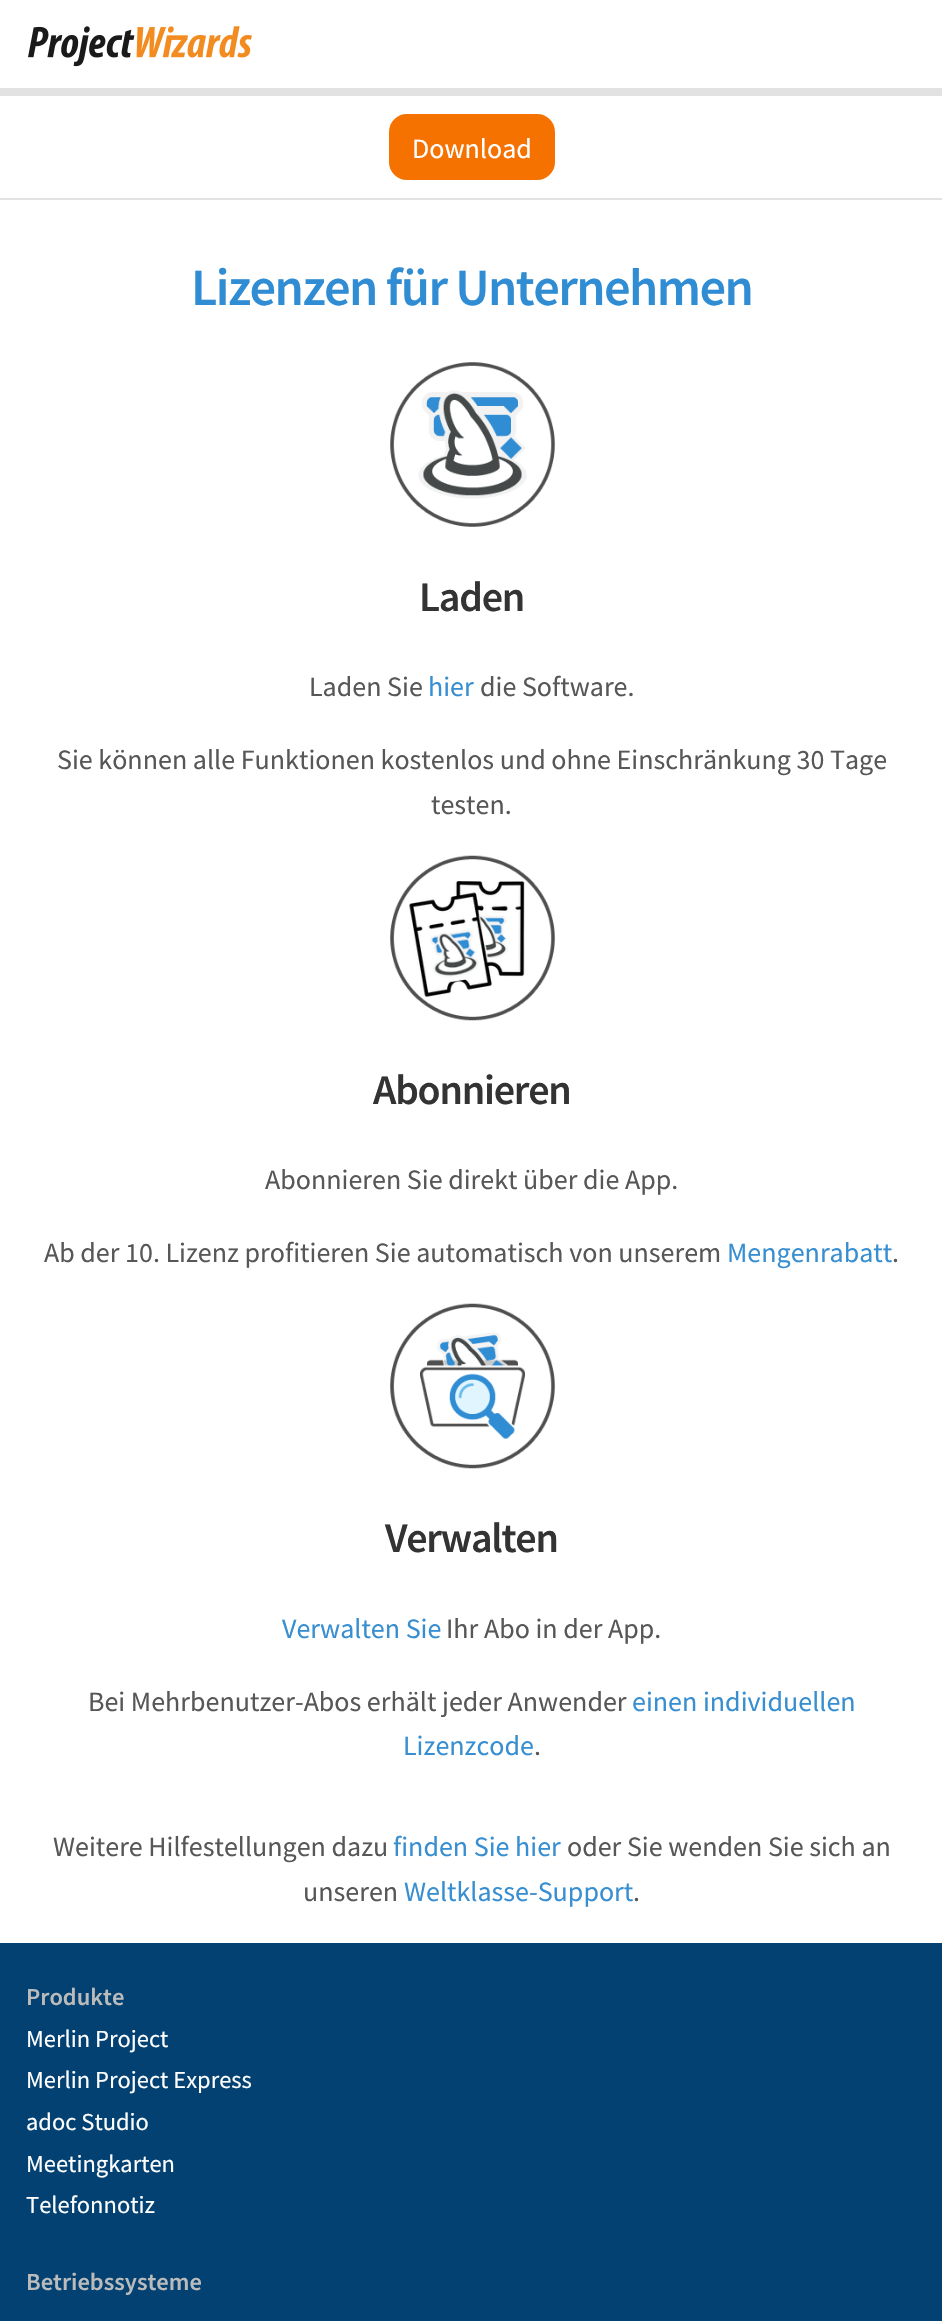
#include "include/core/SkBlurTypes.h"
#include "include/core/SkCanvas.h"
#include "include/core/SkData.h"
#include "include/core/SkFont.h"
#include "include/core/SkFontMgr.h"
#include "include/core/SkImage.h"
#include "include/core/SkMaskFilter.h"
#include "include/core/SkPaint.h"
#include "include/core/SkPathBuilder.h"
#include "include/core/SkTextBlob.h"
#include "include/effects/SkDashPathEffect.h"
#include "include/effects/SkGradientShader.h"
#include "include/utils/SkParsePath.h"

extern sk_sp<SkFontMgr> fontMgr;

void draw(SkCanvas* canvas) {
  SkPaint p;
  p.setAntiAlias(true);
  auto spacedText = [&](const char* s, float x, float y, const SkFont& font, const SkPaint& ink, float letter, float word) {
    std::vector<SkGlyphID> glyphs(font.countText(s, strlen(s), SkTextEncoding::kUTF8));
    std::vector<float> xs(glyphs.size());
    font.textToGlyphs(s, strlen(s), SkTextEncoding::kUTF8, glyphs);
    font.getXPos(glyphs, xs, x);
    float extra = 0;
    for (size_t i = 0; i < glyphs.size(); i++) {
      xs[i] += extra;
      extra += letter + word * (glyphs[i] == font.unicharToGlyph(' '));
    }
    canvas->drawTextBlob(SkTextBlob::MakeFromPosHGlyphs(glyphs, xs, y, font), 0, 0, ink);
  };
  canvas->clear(SK_ColorWHITE);
  p.setColor(SkColorSetRGB(226, 226, 226));
  canvas->drawRect(SkRect::MakeLTRB(0, 88, 942, 96), p);
  canvas->drawImageRect(SkImages::DeferredFromEncodedData(SkData::MakeFromFileName("images/1.png")), SkRect::MakeLTRB(28, 26, 252, 67), SkSamplingOptions());
  canvas->drawRect(SkRect::MakeLTRB(0, 198, 942, 200), p);
  p.setColor(SkColorSetRGB(245, 113, 0));
  canvas->drawRoundRect(SkRect::MakeLTRB(390, 115, 554, 179), 17, 17, p);
  p.setStyle(SkPaint::kStroke_Style);
  p.setStrokeWidth(2);
  canvas->drawRoundRect(SkRect::MakeLTRB(390, 115, 554, 179), 17, 17, p);
  canvas->drawImageRect(SkImages::DeferredFromEncodedData(SkData::MakeFromFileName("images/2.png")), SkRect::MakeLTRB(390, 362, 555, 527), SkSamplingOptions());
  canvas->drawImageRect(SkImages::DeferredFromEncodedData(SkData::MakeFromFileName("images/3.png")), SkRect::MakeLTRB(390, 855, 555, 1021), SkSamplingOptions());
  canvas->drawImageRect(SkImages::DeferredFromEncodedData(SkData::MakeFromFileName("images/4.png")), SkRect::MakeLTRB(390, 1303, 555, 1469), SkSamplingOptions());
  p.setStyle(SkPaint::kFill_Style);
  p.setColor(SkColorSetRGB(2, 65, 113));
  canvas->drawRect(SkRect::MakeLTRB(0, 1943, 942, 2321), p);
  SkFont font1(fontMgr->matchFamilyStyle("Source Sans Pro", SkFontStyle::Normal()), 28);
  font1.setSubpixel(true);
  p.setColor(SK_ColorWHITE);
  canvas->drawString("Download", 412, 158, font1, p);
  SkFont font2(fontMgr->matchFamilyStyle("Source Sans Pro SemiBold", SkFontStyle(600, SkFontStyle::kNormal_Width, SkFontStyle::kUpright_Slant)), 52.5f);
  font2.setSubpixel(true);
  p.setColor(SkColorSetRGB(49, 141, 211));
  spacedText("Lizenzen für Unternehmen", 191, 305, font2, p, -1.6f, 0);
  SkFont font3(fontMgr->matchFamilyStyle("Source Sans Pro SemiBold", SkFontStyle(600, SkFontStyle::kNormal_Width, SkFontStyle::kUpright_Slant)), 42);
  font3.setSubpixel(true);
  p.setColor(SkColorSetRGB(51, 51, 51));
  spacedText("Laden", 419, 611, font3, p, -1.25f, 0);
  p.setColor(SkColorSetRGB(87, 87, 87));
  canvas->drawString("Laden Sie", 309, 696, font1, p);
  p.setColor(SkColorSetRGB(55, 142, 209));
  canvas->drawString("hier", 428, 696, font1, p);
  p.setColor(SkColorSetRGB(87, 87, 87));
  canvas->drawString("die Software.", 480, 696, font1, p);
  canvas->drawString("Sie können alle Funktionen kostenlos und ohne Einschränkung 30 Tage", 57, 769, font1, p);
  canvas->drawString("testen.", 431, 814, font1, p);
  p.setColor(SkColorSetRGB(51, 51, 51));
  spacedText("Abonnieren", 373, 1104, font3, p, -1.25f, 0);
  p.setColor(SkColorSetRGB(87, 87, 87));
  canvas->drawString("Abonnieren Sie direkt über die App.", 265, 1189, font1, p);
  canvas->drawString("Ab der 10. Lizenz profitieren Sie automatisch von unserem", 44, 1262, font1, p);
  p.setColor(SkColorSetRGB(55, 142, 209));
  canvas->drawString("Mengenrabatt", 727, 1262, font1, p);
  p.setColor(SkColorSetRGB(87, 87, 87));
  canvas->drawString(".", 892, 1262, font1, p);
  p.setColor(SkColorSetRGB(51, 51, 51));
  spacedText("Verwalten", 385, 1552, font3, p, -1.25f, 0);
  p.setColor(SkColorSetRGB(55, 142, 209));
  canvas->drawString("Verwalten Sie", 282, 1638, font1, p);
  p.setColor(SkColorSetRGB(87, 87, 87));
  canvas->drawString("Ihr Abo in der App.", 446, 1638, font1, p);
  canvas->drawString("Bei Mehrbenutzer-Abos erhält jeder Anwender", 88, 1711, font1, p);
  p.setColor(SkColorSetRGB(55, 142, 209));
  canvas->drawString("einen individuellen", 632, 1711, font1, p);
  canvas->drawString("Lizenzcode", 403, 1755, font1, p);
  p.setColor(SkColorSetRGB(87, 87, 87));
  canvas->drawString(".", 534, 1755, font1, p);
  canvas->drawString("Weitere Hilfestellungen dazu", 53, 1856, font1, p);
  p.setColor(SkColorSetRGB(55, 142, 209));
  canvas->drawString("finden Sie hier", 393, 1856, font1, p);
  p.setColor(SkColorSetRGB(87, 87, 87));
  canvas->drawString("oder Sie wenden Sie sich an", 567, 1856, font1, p);
  canvas->drawString("unseren", 303, 1901, font1, p);
  p.setColor(SkColorSetRGB(55, 142, 209));
  canvas->drawString("Weltklasse-Support", 404, 1901, font1, p);
  p.setColor(SkColorSetRGB(87, 87, 87));
  canvas->drawString(".", 633, 1901, font1, p);
  SkFont font4(fontMgr->matchFamilyStyle("Source Sans Pro SemiBold", SkFontStyle(600, SkFontStyle::kNormal_Width, SkFontStyle::kUpright_Slant)), 24.5f);
  font4.setSubpixel(true);
  p.setColor(SkColorSetRGB(187, 187, 187));
  canvas->drawString("Produkte", 26, 2005, font4, p);
  SkFont font5(fontMgr->matchFamilyStyle("Source Sans Pro", SkFontStyle::Normal()), 24.5f);
  font5.setSubpixel(true);
  p.setColor(SK_ColorWHITE);
  canvas->drawString("Merlin Project", 26, 2047, font5, p);
  canvas->drawString("Merlin Project Express", 26, 2088, font5, p);
  canvas->drawString("adoc Studio", 26, 2130, font5, p);
  canvas->drawString("Meetingkarten", 26, 2172, font5, p);
  canvas->drawString("Telefonnotiz", 26, 2213, font5, p);
  p.setColor(SkColorSetRGB(187, 187, 187));
  canvas->drawString("Betriebssysteme", 26, 2290, font4, p);
}
